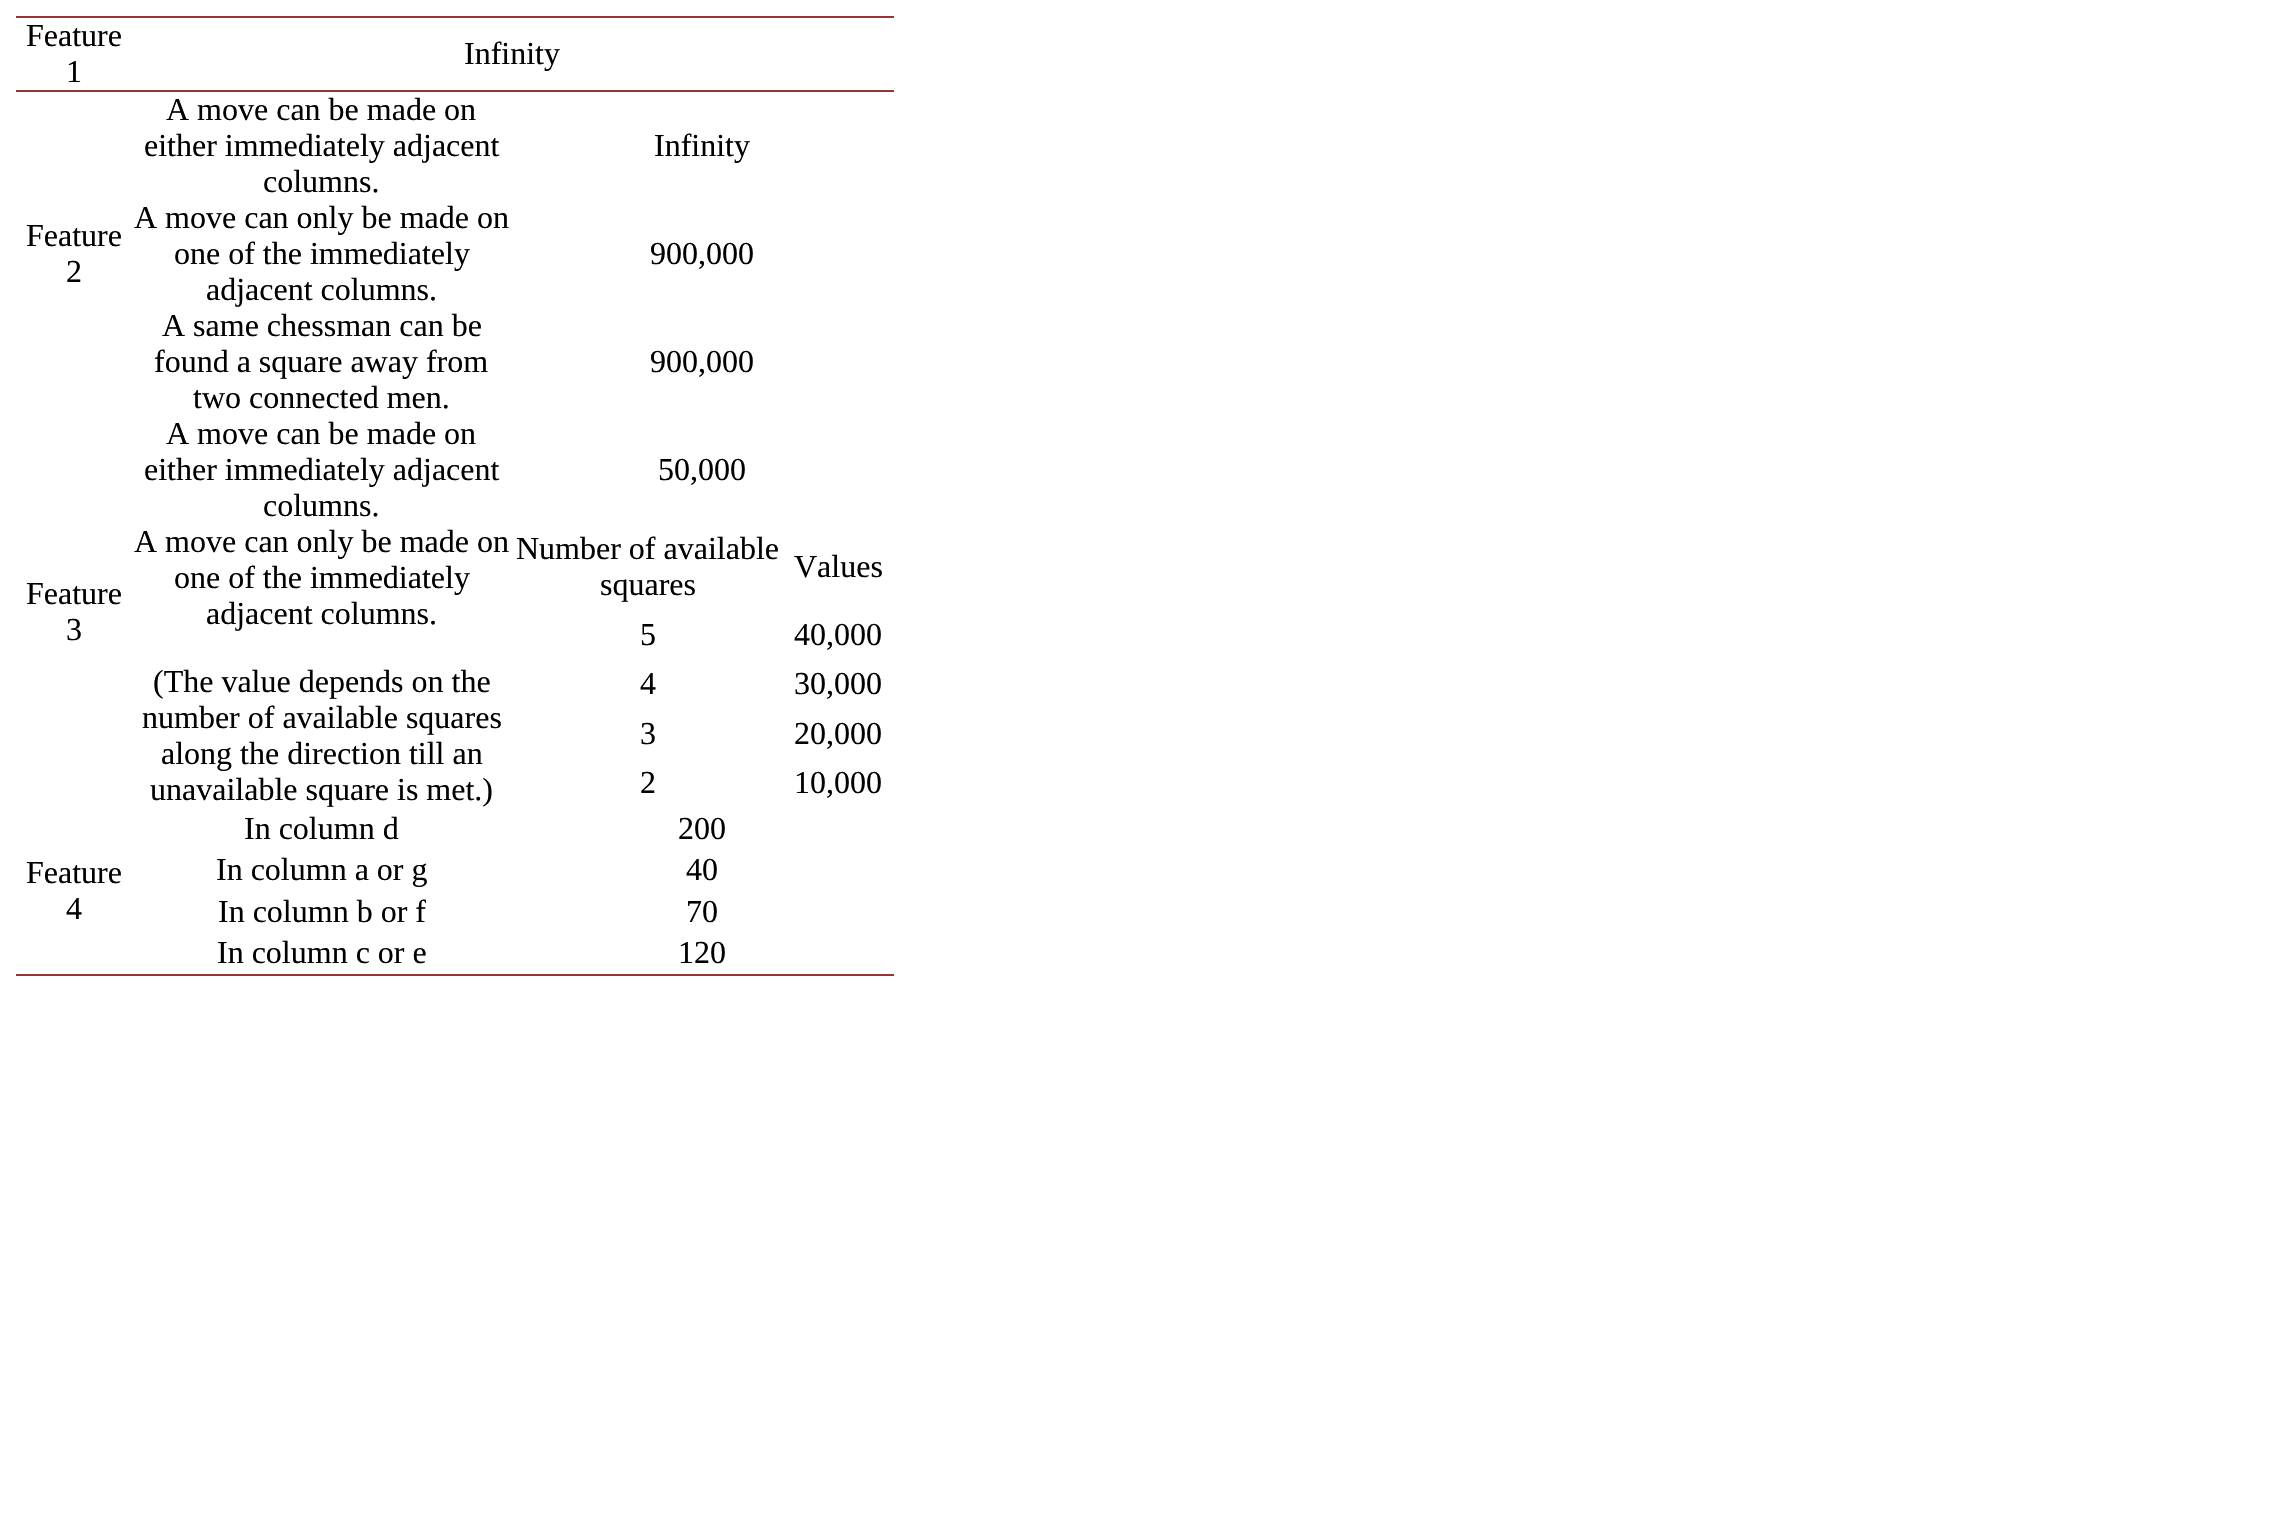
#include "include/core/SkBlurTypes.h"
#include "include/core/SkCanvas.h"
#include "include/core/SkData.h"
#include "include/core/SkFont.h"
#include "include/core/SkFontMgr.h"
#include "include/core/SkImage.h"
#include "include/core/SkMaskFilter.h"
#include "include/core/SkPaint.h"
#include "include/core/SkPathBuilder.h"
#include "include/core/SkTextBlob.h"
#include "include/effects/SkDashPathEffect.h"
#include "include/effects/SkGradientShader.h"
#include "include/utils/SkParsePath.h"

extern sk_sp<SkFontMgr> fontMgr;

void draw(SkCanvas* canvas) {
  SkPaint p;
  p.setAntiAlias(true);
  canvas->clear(SK_ColorWHITE);
  p.setColor(SkColorSetRGB(148, 54, 52));
  canvas->drawRect(SkRect::MakeLTRB(16, 16, 894, 18), p);
  canvas->drawRect(SkRect::MakeLTRB(16, 90, 894, 92), p);
  canvas->drawRect(SkRect::MakeLTRB(16, 974, 894, 976), p);
  SkFont font1(fontMgr->matchFamilyStyle("Liberation Serif", SkFontStyle::Normal()), 32);
  font1.setSubpixel(true);
  p.setColor(SK_ColorBLACK);
  canvas->drawString("Feature", 26, 46, font1, p);
  canvas->drawString("1", 66, 82, font1, p);
  canvas->drawString("Infinity", 464, 64, font1, p);
  canvas->drawString("A move can be made on", 166, 120, font1, p);
  canvas->drawString("either immediately adjacent", 144, 156, font1, p);
  canvas->drawString("columns.", 263, 192, font1, p);
  canvas->drawString("Infinity", 654, 156, font1, p);
  canvas->drawString("Feature", 26, 246, font1, p);
  canvas->drawString("2", 66, 282, font1, p);
  canvas->drawString("A move can only be made on", 134, 228, font1, p);
  canvas->drawString("one of the immediately", 174, 264, font1, p);
  canvas->drawString("adjacent columns.", 206, 300, font1, p);
  canvas->drawString("900,000", 650, 264, font1, p);
  canvas->drawString("A same chessman can be", 162, 336, font1, p);
  canvas->drawString("found a square away from", 154, 372, font1, p);
  canvas->drawString("two connected men.", 193, 408, font1, p);
  canvas->drawString("900,000", 650, 372, font1, p);
  canvas->drawString("A move can be made on", 166, 444, font1, p);
  canvas->drawString("either immediately adjacent", 144, 480, font1, p);
  canvas->drawString("columns.", 263, 516, font1, p);
  canvas->drawString("50,000", 658, 480, font1, p);
  canvas->drawString("Feature", 26, 604, font1, p);
  canvas->drawString("3", 66, 640, font1, p);
  canvas->drawString("A move can only be made on", 134, 552, font1, p);
  canvas->drawString("one of the immediately", 174, 588, font1, p);
  canvas->drawString("adjacent columns.", 206, 624, font1, p);
  canvas->drawString("(The value depends on the", 153, 692, font1, p);
  canvas->drawString("number of available squares", 142, 728, font1, p);
  canvas->drawString("along the direction till an", 161, 764, font1, p);
  canvas->drawString("unavailable square is met.)", 150, 800, font1, p);
  canvas->drawString("Number of available", 516, 559, font1, p);
  canvas->drawString("squares", 600, 595, font1, p);
  canvas->drawString("Values", 794, 577, font1, p);
  canvas->drawString("5", 640, 645, font1, p);
  canvas->drawString("40,000", 794, 645, font1, p);
  canvas->drawString("4", 640, 694, font1, p);
  canvas->drawString("30,000", 794, 694, font1, p);
  canvas->drawString("3", 640, 744, font1, p);
  canvas->drawString("20,000", 794, 744, font1, p);
  canvas->drawString("2", 640, 793, font1, p);
  canvas->drawString("10,000", 794, 793, font1, p);
  canvas->drawString("In column d", 244, 839, font1, p);
  canvas->drawString("200", 678, 839, font1, p);
  canvas->drawString("Feature", 26, 883, font1, p);
  canvas->drawString("4", 66, 919, font1, p);
  canvas->drawString("In column a or g", 216, 880, font1, p);
  canvas->drawString("40", 686, 880, font1, p);
  canvas->drawString("In column b or f", 218, 922, font1, p);
  canvas->drawString("70", 686, 922, font1, p);
  canvas->drawString("In column c or e", 217, 963, font1, p);
  canvas->drawString("120", 678, 963, font1, p);
}
